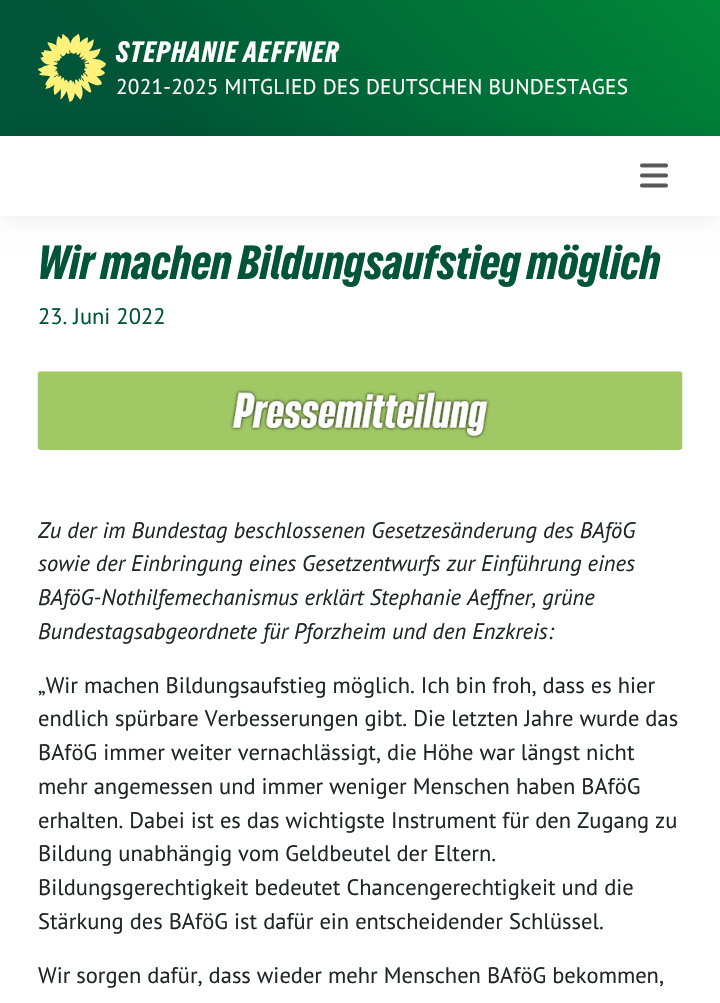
#include "include/core/SkBlurTypes.h"
#include "include/core/SkCanvas.h"
#include "include/core/SkData.h"
#include "include/core/SkFont.h"
#include "include/core/SkFontMgr.h"
#include "include/core/SkImage.h"
#include "include/core/SkMaskFilter.h"
#include "include/core/SkPaint.h"
#include "include/core/SkPathBuilder.h"
#include "include/core/SkTextBlob.h"
#include "include/effects/SkDashPathEffect.h"
#include "include/effects/SkGradientShader.h"
#include "include/utils/SkParsePath.h"

extern sk_sp<SkFontMgr> fontMgr;

void draw(SkCanvas* canvas) {
  SkPaint p;
  p.setAntiAlias(true);
  auto spacedText = [&](const char* s, float x, float y, const SkFont& font, const SkPaint& ink, float letter, float word) {
    std::vector<SkGlyphID> glyphs(font.countText(s, strlen(s), SkTextEncoding::kUTF8));
    std::vector<float> xs(glyphs.size());
    font.textToGlyphs(s, strlen(s), SkTextEncoding::kUTF8, glyphs);
    font.getXPos(glyphs, xs, x);
    float extra = 0;
    for (size_t i = 0; i < glyphs.size(); i++) {
      xs[i] += extra;
      extra += letter + word * (glyphs[i] == font.unicharToGlyph(' '));
    }
    canvas->drawTextBlob(SkTextBlob::MakeFromPosHGlyphs(glyphs, xs, y, font), 0, 0, ink);
  };
  canvas->clear(SK_ColorWHITE);
  {
    const SkColor colors[] = {SkColorSetRGB(0, 84, 55), SkColorSetRGB(0, 137, 57)};
    const float stops[] = {0.2f, 1};
    const SkPoint ends[] = {{146, 282}, {574, -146}};
    p.setShader(SkGradientShader::MakeLinear(ends, colors, stops, 2, SkTileMode::kClamp));
    p.setAlpha(255);
  }
  canvas->drawRect(SkRect::MakeLTRB(0, 0, 720, 136), p);
  canvas->drawImageRect(SkImages::DeferredFromEncodedData(SkData::MakeFromFileName("images/1.png")), SkRect::MakeLTRB(38, 34, 106, 103), SkSamplingOptions());
  p.setShader(nullptr);
  p.setColor(SkColorSetARGB(20, 0, 0, 0));
  p.setMaskFilter(SkMaskFilter::MakeBlur(kNormal_SkBlurStyle, 12.5f));
  canvas->drawRect(SkRect::MakeLTRB(0, 138, 720, 218), p);
  p.setMaskFilter(nullptr);
  p.setColor(SK_ColorWHITE);
  canvas->drawRect(SkRect::MakeLTRB(0, 136, 720, 216), p);
  canvas->drawImageRect(SkImages::DeferredFromEncodedData(SkData::MakeFromFileName("images/2.png")), SkRect::MakeLTRB(640, 163, 668, 188), SkSamplingOptions());
  canvas->drawImageRect(SkImages::DeferredFromEncodedData(SkData::MakeFromFileName("images/3.png")), SkRect::MakeLTRB(37, 371, 683, 450), SkSamplingOptions());
  SkFont font1(fontMgr->matchFamilyStyle("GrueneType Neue", SkFontStyle::Normal()), 27.5f);
  font1.setSubpixel(true);
  spacedText("STEPHANIE AEFFNER", 116, 62, font1, p, 1.25f, 0);
  SkFont font2(fontMgr->matchFamilyStyle("PT Sans", SkFontStyle::Normal()), 21.25f);
  font2.setSubpixel(true);
  spacedText("2021-2025 MITGLIED DES DEUTSCHEN BUNDESTAGES", 116, 94, font2, p, 0.25f, 0);
  SkFont font3(fontMgr->matchFamilyStyle("GrueneType Neue", SkFontStyle::Normal()), 45);
  font3.setSubpixel(true);
  p.setColor(SkColorSetRGB(0, 84, 55));
  canvas->drawString("Wir machen Bildungsaufstieg möglich", 38, 279, font3, p);
  SkFont font4(fontMgr->matchFamilyStyle("PT Sans", SkFontStyle::Normal()), 22.5f);
  font4.setSubpixel(true);
  canvas->drawString("23. Juni 2022", 38, 324, font4, p);
  SkFont font5(fontMgr->matchFamilyStyle("PT Sans", SkFontStyle::Italic()), 22.5f);
  font5.setSubpixel(true);
  p.setColor(SkColorSetRGB(33, 37, 41));
  canvas->drawString("Zu der im Bundestag beschlossenen Gesetzesänderung des BAföG", 38, 538, font5, p);
  canvas->drawString("sowie der Einbringung eines Gesetzentwurfs zur Einführung eines", 38, 571, font5, p);
  canvas->drawString("BAföG-Nothilfemechanismus erklärt Stephanie Aeffner, grüne", 38, 605, font5, p);
  canvas->drawString("Bundestagsabgeordnete für Pforzheim und den Enzkreis:", 38, 639, font5, p);
  canvas->drawString("„Wir machen Bildungsaufstieg möglich. Ich bin froh, dass es hier", 38, 693, font4, p);
  canvas->drawString("endlich spürbare Verbesserungen gibt. Die letzten Jahre wurde das", 38, 726, font4, p);
  canvas->drawString("BAföG immer weiter vernachlässigt, die Höhe war längst nicht", 38, 760, font4, p);
  canvas->drawString("mehr angemessen und immer weniger Menschen haben BAföG", 38, 794, font4, p);
  canvas->drawString("erhalten. Dabei ist es das wichtigste Instrument für den Zugang zu", 38, 828, font4, p);
  canvas->drawString("Bildung unabhängig vom Geldbeutel der Eltern.", 38, 861, font4, p);
  canvas->drawString("Bildungsgerechtigkeit bedeutet Chancengerechtigkeit und die", 38, 895, font4, p);
  canvas->drawString("Stärkung des BAföG ist dafür ein entscheidender Schlüssel.", 38, 929, font4, p);
  canvas->drawString("Wir sorgen dafür, dass wieder mehr Menschen BAföG bekommen,", 38, 983, font4, p);
}
